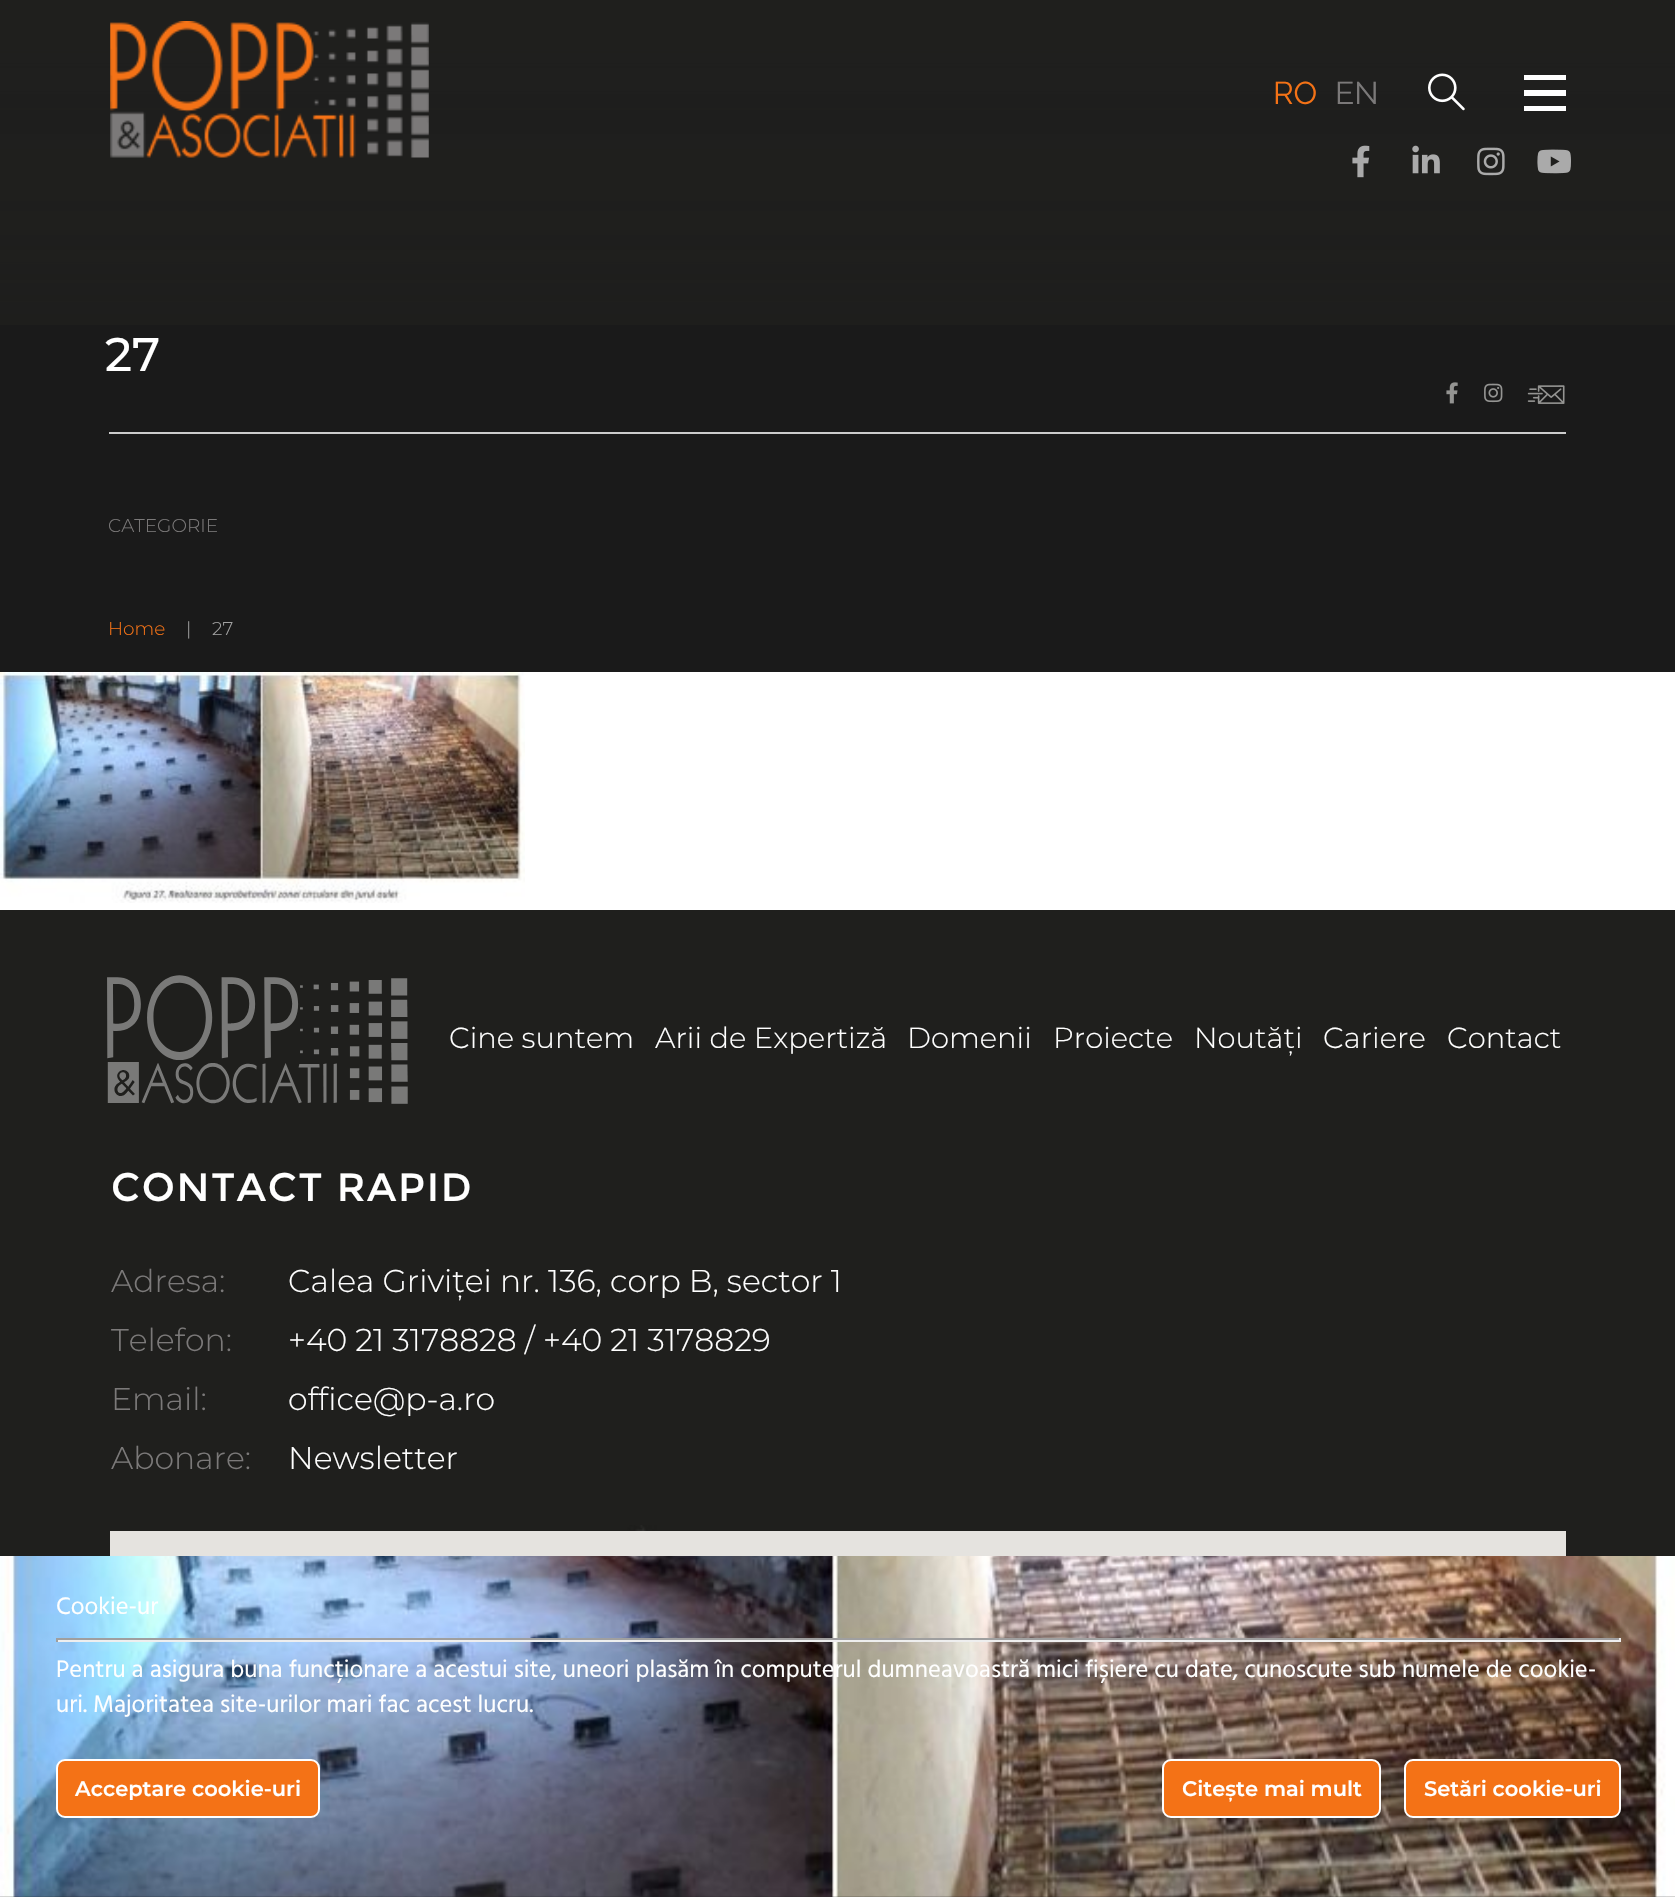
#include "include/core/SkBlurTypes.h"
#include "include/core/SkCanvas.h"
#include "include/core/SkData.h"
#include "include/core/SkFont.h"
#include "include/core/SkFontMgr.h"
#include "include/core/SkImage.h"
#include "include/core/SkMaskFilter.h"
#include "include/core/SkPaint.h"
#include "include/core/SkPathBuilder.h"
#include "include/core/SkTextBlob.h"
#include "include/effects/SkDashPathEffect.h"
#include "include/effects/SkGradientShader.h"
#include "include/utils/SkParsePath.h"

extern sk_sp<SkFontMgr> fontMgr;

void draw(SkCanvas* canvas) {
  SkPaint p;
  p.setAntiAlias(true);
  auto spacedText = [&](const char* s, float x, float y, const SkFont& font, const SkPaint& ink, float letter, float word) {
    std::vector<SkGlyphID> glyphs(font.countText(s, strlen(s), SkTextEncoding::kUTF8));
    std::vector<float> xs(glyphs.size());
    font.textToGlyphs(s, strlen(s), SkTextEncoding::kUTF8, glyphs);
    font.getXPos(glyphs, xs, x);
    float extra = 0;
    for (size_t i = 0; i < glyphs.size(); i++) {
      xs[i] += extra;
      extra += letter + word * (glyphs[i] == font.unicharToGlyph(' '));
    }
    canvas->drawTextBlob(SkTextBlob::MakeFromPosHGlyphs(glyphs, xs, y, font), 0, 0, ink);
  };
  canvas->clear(SK_ColorWHITE);
  p.setColor(SkColorSetRGB(26, 26, 26));
  canvas->drawRect(SkRect::MakeLTRB(0, 0, 1675, 672), p);
  canvas->drawImageRect(SkImages::DeferredFromEncodedData(SkData::MakeFromFileName("images/7.png")), SkRect::MakeLTRB(0, 0, 1675, 325), SkSamplingOptions());
  canvas->drawImageRect(SkImages::DeferredFromEncodedData(SkData::MakeFromFileName("images/1.png")), SkRect::MakeLTRB(110, 21, 429, 158), SkSamplingOptions());
  canvas->drawImageRect(SkImages::DeferredFromEncodedData(SkData::MakeFromFileName("images/2.png")), SkRect::MakeLTRB(1428, 73, 1465, 111), SkSamplingOptions());
  p.setColor(SK_ColorWHITE);
  canvas->drawPath(SkPathBuilder().moveTo(1524, 111).lineTo(1566, 111).lineTo(1566, 106).lineTo(1524, 106).close().moveTo(1524, 96).lineTo(1566, 96).lineTo(1566, 90).lineTo(1524, 90).close().moveTo(1524, 75).lineTo(1524, 80).lineTo(1566, 80).lineTo(1566, 75).close().detach(), p);
  canvas->drawImageRect(SkImages::DeferredFromEncodedData(SkData::MakeFromFileName("images/3.png")), SkRect::MakeLTRB(1352, 145, 1370, 178), SkSamplingOptions());
  canvas->drawImageRect(SkImages::DeferredFromEncodedData(SkData::MakeFromFileName("images/4.png")), SkRect::MakeLTRB(1412, 145, 1440, 174), SkSamplingOptions());
  canvas->drawImageRect(SkImages::DeferredFromEncodedData(SkData::MakeFromFileName("images/5.png")), SkRect::MakeLTRB(1477, 147, 1505, 176), SkSamplingOptions());
  canvas->drawImageRect(SkImages::DeferredFromEncodedData(SkData::MakeFromFileName("images/6.png")), SkRect::MakeLTRB(1537, 149, 1571, 174), SkSamplingOptions());
  p.setColor(SkColorSetRGB(204, 204, 204));
  canvas->drawRect(SkRect::MakeLTRB(109, 432, 1566, 434), p);
  canvas->drawImageRect(SkImages::DeferredFromEncodedData(SkData::MakeFromFileName("images/8.png")), SkRect::MakeLTRB(1446, 382, 1458, 404), SkSamplingOptions());
  canvas->drawImageRect(SkImages::DeferredFromEncodedData(SkData::MakeFromFileName("images/9.png")), SkRect::MakeLTRB(1484, 383, 1503, 403), SkSamplingOptions());
  canvas->drawImageRect(SkImages::DeferredFromEncodedData(SkData::MakeFromFileName("images/10.png")), SkRect::MakeLTRB(1527, 385, 1565, 404), SkSamplingOptions());
  canvas->drawImageRect(SkImages::DeferredFromEncodedData(SkData::MakeFromFileName("images/11.png")), SkRect::MakeLTRB(0, 672, 525, 903), SkSamplingOptions());
  p.setColor(SkColorSetRGB(31, 31, 29));
  canvas->drawRect(SkRect::MakeLTRB(0, 910, 1675, 1525), p);
  canvas->drawImageRect(SkImages::DeferredFromEncodedData(SkData::MakeFromFileName("images/12.png")), SkRect::MakeLTRB(0, 1525, 1675, 1897), SkSamplingOptions());
  canvas->drawImageRect(SkImages::DeferredFromEncodedData(SkData::MakeFromFileName("images/13.png")), SkRect::MakeLTRB(107, 975, 408, 1104), SkSamplingOptions());
  p.setColor(SkColorSetRGB(229, 227, 223));
  canvas->drawRect(SkRect::MakeLTRB(110, 1531, 1566, 1556), p);
  canvas->drawImageRect(SkImages::DeferredFromEncodedData(SkData::MakeFromFileName("images/14.png")), SkRect::MakeLTRB(0, 1556, 1675, 1897), SkSamplingOptions());
  p.setColor(SkColorSetRGB(159, 159, 159));
  canvas->drawRect(SkRect::MakeLTRB(56, 1638, 1621, 1640), p);
  p.setColor(SkColorSetRGB(238, 238, 238));
  canvas->drawRect(SkRect::MakeLTRB(1619, 1638, 1621, 1642), p);
  canvas->drawRect(SkRect::MakeLTRB(56, 1640, 1621, 1642), p);
  p.setColor(SkColorSetRGB(159, 159, 159));
  canvas->drawRect(SkRect::MakeLTRB(56, 1638, 58, 1642), p);
  p.setColor(SkColorSetRGB(244, 114, 22));
  canvas->drawRoundRect(SkRect::MakeLTRB(57, 1760, 319, 1817), 8, 8, p);
  p.setStyle(SkPaint::kStroke_Style);
  p.setStrokeWidth(2);
  p.setColor(SK_ColorWHITE);
  canvas->drawRoundRect(SkRect::MakeLTRB(57, 1760, 319, 1817), 8, 8, p);
  p.setStyle(SkPaint::kFill_Style);
  p.setColor(SkColorSetRGB(244, 114, 22));
  canvas->drawRoundRect(SkRect::MakeLTRB(1163, 1760, 1380, 1817), 8, 8, p);
  p.setStyle(SkPaint::kStroke_Style);
  p.setColor(SK_ColorWHITE);
  canvas->drawRoundRect(SkRect::MakeLTRB(1163, 1760, 1380, 1817), 8, 8, p);
  p.setStyle(SkPaint::kFill_Style);
  p.setColor(SkColorSetRGB(244, 114, 22));
  canvas->drawRoundRect(SkRect::MakeLTRB(1405, 1760, 1620, 1817), 8, 8, p);
  p.setStyle(SkPaint::kStroke_Style);
  p.setColor(SK_ColorWHITE);
  canvas->drawRoundRect(SkRect::MakeLTRB(1405, 1760, 1620, 1817), 8, 8, p);
  SkFont font1(fontMgr->matchFamilyStyle("Raleway", SkFontStyle::Normal()), 31.5f);
  font1.setSubpixel(true);
  p.setStyle(SkPaint::kFill_Style);
  p.setColor(SkColorSetRGB(244, 114, 22));
  canvas->drawString("RO", 1273, 104, font1, p);
  p.setColor(SkColorSetRGB(123, 121, 121));
  canvas->drawString("EN", 1335, 104, font1, p);
  SkFont font2(fontMgr->matchFamilyStyle("Montserrat", SkFontStyle(500, SkFontStyle::kNormal_Width, SkFontStyle::kUpright_Slant)), 47);
  font2.setSubpixel(true);
  p.setColor(SK_ColorWHITE);
  canvas->drawString("27", 105, 371, font2, p);
  SkFont font3(fontMgr->matchFamilyStyle("Montserrat", SkFontStyle(300, SkFontStyle::kNormal_Width, SkFontStyle::kUpright_Slant)), 18.5f);
  font3.setSubpixel(true);
  p.setColor(SkColorSetRGB(123, 121, 121));
  canvas->drawString("CATEGORIE", 108, 532, font3, p);
  p.setColor(SkColorSetRGB(244, 114, 22));
  canvas->drawString("Home", 108, 635, font3, p);
  p.setColor(SkColorSetRGB(161, 161, 161));
  canvas->drawString("|", 186, 635, font3, p);
  canvas->drawString("27", 212, 635, font3, p);
  SkFont font4(fontMgr->matchFamilyStyle("Montserrat", SkFontStyle(300, SkFontStyle::kNormal_Width, SkFontStyle::kUpright_Slant)), 29);
  font4.setSubpixel(true);
  p.setColor(SK_ColorWHITE);
  canvas->drawString("Cine suntem", 449, 1048, font4, p);
  canvas->drawString("Arii de Expertiză", 655, 1048, font4, p);
  canvas->drawString("Domenii", 907, 1048, font4, p);
  canvas->drawString("Proiecte", 1053, 1048, font4, p);
  canvas->drawString("Noutăți", 1194, 1048, font4, p);
  canvas->drawString("Cariere", 1323, 1048, font4, p);
  canvas->drawString("Contact", 1447, 1048, font4, p);
  SkFont font5(fontMgr->matchFamilyStyle("Montserrat", SkFontStyle::Normal()), 39.4f);
  font5.setSubpixel(true);
  spacedText("CONTACT RAPID", 111, 1201, font5, p, 1.75f, 0);
  SkFont font6(fontMgr->matchFamilyStyle("Montserrat", SkFontStyle(300, SkFontStyle::kNormal_Width, SkFontStyle::kUpright_Slant)), 31.5f);
  font6.setSubpixel(true);
  p.setColor(SkColorSetRGB(123, 121, 121));
  canvas->drawString("Adresa:", 111, 1292, font6, p);
  p.setColor(SK_ColorWHITE);
  canvas->drawString("Calea Griviței nr. 136, corp B, sector 1", 288, 1292, font6, p);
  p.setColor(SkColorSetRGB(123, 121, 121));
  canvas->drawString("Telefon:", 111, 1351, font6, p);
  p.setColor(SK_ColorWHITE);
  canvas->drawString("+40 21 3178828 / +40 21 3178829", 288, 1351, font6, p);
  p.setColor(SkColorSetRGB(123, 121, 121));
  canvas->drawString("Email:", 111, 1410, font6, p);
  p.setColor(SK_ColorWHITE);
  canvas->drawString("office@p-a.ro", 288, 1410, font6, p);
  p.setColor(SkColorSetRGB(123, 121, 121));
  canvas->drawString("Abonare:", 111, 1469, font6, p);
  p.setColor(SK_ColorWHITE);
  canvas->drawString("Newsletter", 288, 1469, font6, p);
  SkFont font7(fontMgr->matchFamilyStyle("Hind", SkFontStyle::Normal()), 24.5f);
  font7.setSubpixel(true);
  canvas->drawString("Cookie-ur", 56, 1614, font7, p);
  canvas->drawString("Pentru a asigura buna funcționare a acestui site, uneori plasăm în computerul dumneavoastră mici fișiere cu date, cunoscute sub numele de cookie-", 56, 1677, font7, p);
  canvas->drawString("uri. Majoritatea site-urilor mari fac acest lucru.", 56, 1712, font7, p);
  SkFont font8(fontMgr->matchFamilyStyle("Montserrat", SkFontStyle(600, SkFontStyle::kNormal_Width, SkFontStyle::kUpright_Slant)), 21);
  font8.setSubpixel(true);
  canvas->drawString("Acceptare cookie-uri", 75, 1796, font8, p);
  canvas->drawString("Citește mai mult", 1182, 1796, font8, p);
  canvas->drawString("Setări cookie-uri", 1424, 1796, font8, p);
}
